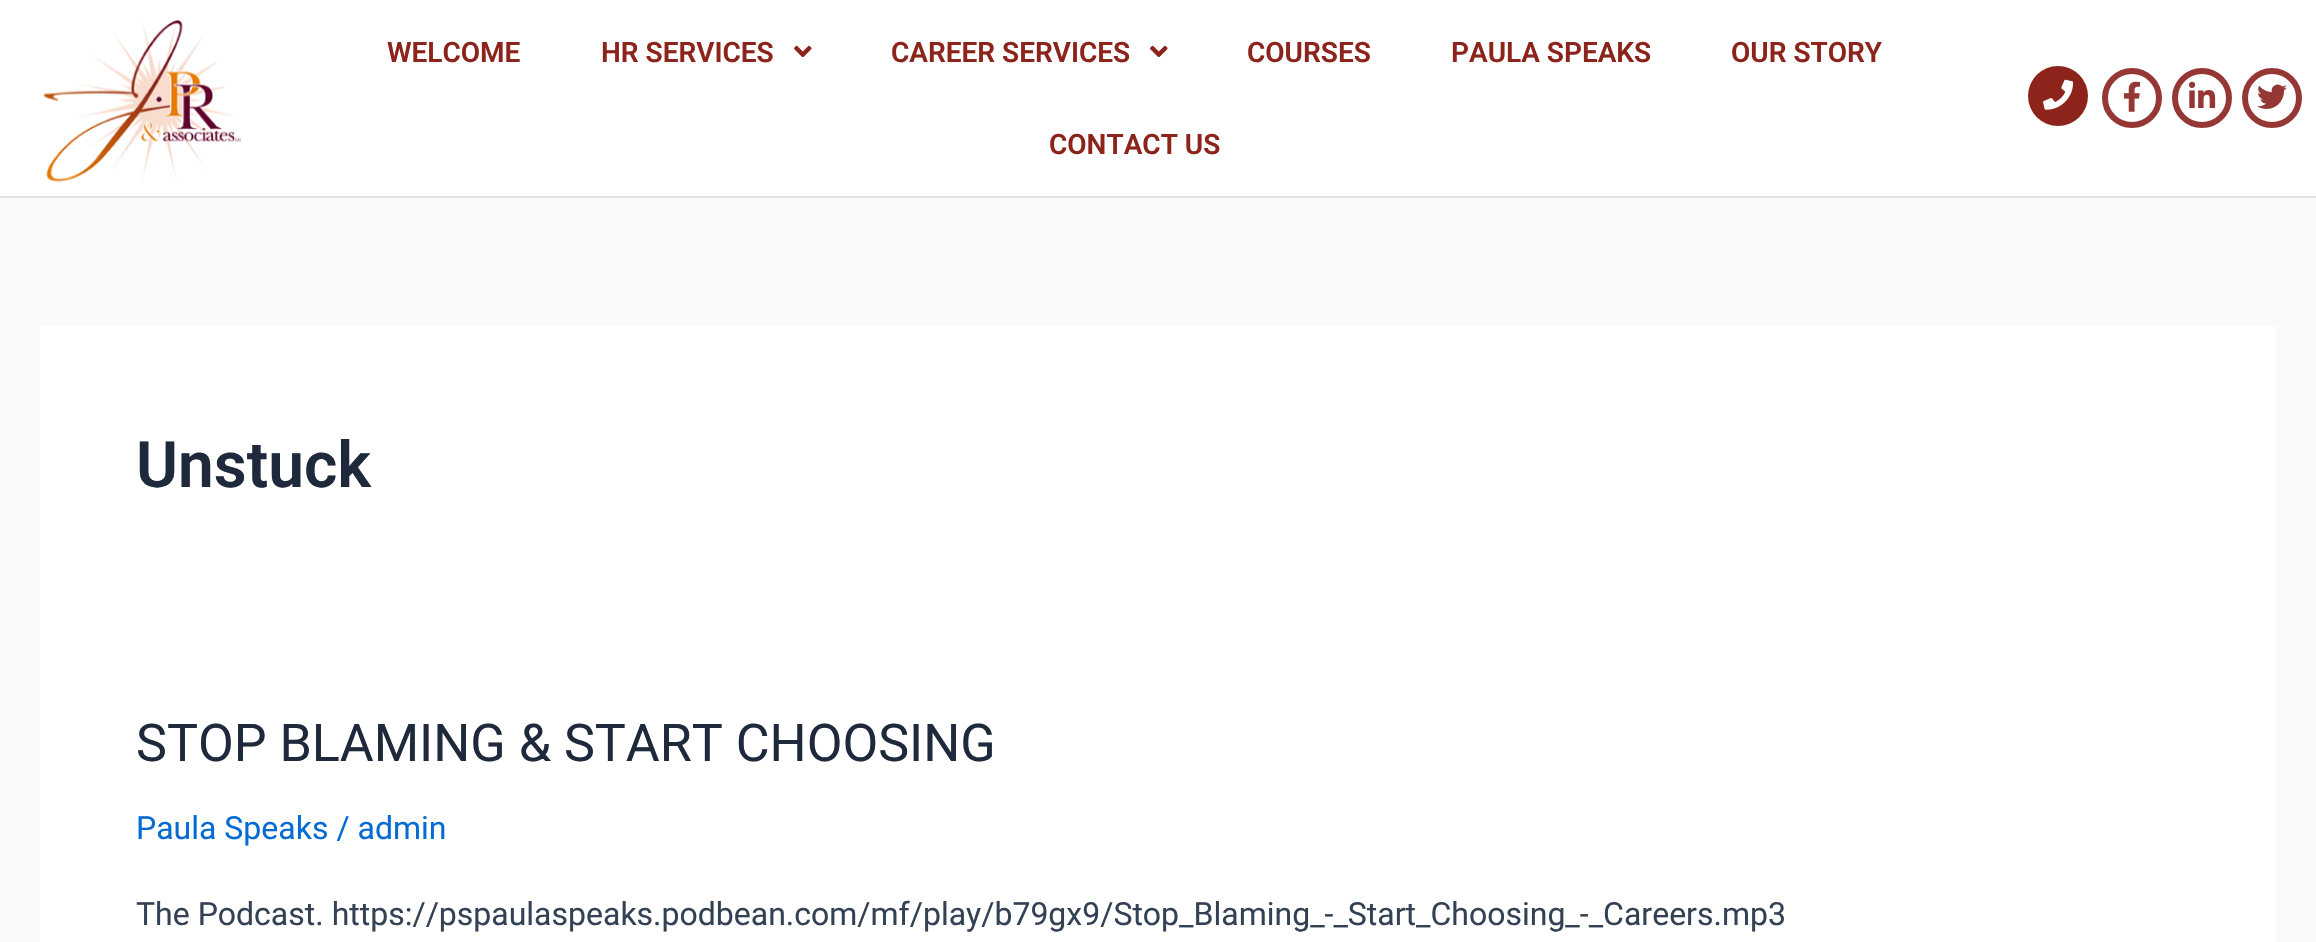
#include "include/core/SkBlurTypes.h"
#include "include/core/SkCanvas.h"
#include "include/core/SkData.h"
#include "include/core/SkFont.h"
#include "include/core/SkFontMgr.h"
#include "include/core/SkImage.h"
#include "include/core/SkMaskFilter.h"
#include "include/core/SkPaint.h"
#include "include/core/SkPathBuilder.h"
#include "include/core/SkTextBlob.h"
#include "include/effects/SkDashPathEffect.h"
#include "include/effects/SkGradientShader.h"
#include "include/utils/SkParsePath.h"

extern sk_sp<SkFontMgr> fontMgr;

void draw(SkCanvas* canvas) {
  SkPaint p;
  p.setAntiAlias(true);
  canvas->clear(SkColorSetRGB(249, 250, 251));
  p.setColor(SK_ColorWHITE);
  canvas->drawRect(SkRect::MakeLTRB(0, 0, 2316, 196), p);
  p.setColor(SkColorSetRGB(228, 228, 228));
  canvas->drawRect(SkRect::MakeLTRB(0, 196, 2316, 198), p);
  canvas->drawImageRect(SkImages::DeferredFromEncodedData(SkData::MakeFromFileName("images/1.png")), SkRect::MakeLTRB(44, 20, 242, 183), SkSamplingOptions());
  canvas->drawImageRect(SkImages::DeferredFromEncodedData(SkData::MakeFromFileName("images/2.png")), SkRect::MakeLTRB(794, 45, 812, 58), SkSamplingOptions());
  canvas->drawImageRect(SkImages::DeferredFromEncodedData(SkData::MakeFromFileName("images/2.png")), SkRect::MakeLTRB(1150, 45, 1168, 58), SkSamplingOptions());
  p.setColor(SkColorSetRGB(140, 36, 28));
  canvas->drawCircle(2058, 96, 30, p);
  canvas->drawImageRect(SkImages::DeferredFromEncodedData(SkData::MakeFromFileName("images/3.png")), SkRect::MakeLTRB(2043, 79, 2074, 110), SkSamplingOptions());
  p.setStyle(SkPaint::kStroke_Style);
  p.setStrokeWidth(6);
  p.setColor(SkColorSetRGB(149, 55, 52));
  canvas->drawCircle(2132, 98, 27, p);
  canvas->drawImageRect(SkImages::DeferredFromEncodedData(SkData::MakeFromFileName("images/4.png")), SkRect::MakeLTRB(2123, 81, 2141, 112), SkSamplingOptions());
  canvas->drawCircle(2202, 98, 27, p);
  canvas->drawImageRect(SkImages::DeferredFromEncodedData(SkData::MakeFromFileName("images/5.png")), SkRect::MakeLTRB(2188, 81, 2216, 108), SkSamplingOptions());
  canvas->drawCircle(2272, 98, 27, p);
  canvas->drawImageRect(SkImages::DeferredFromEncodedData(SkData::MakeFromFileName("images/6.png")), SkRect::MakeLTRB(2257, 84, 2287, 109), SkSamplingOptions());
  p.setStyle(SkPaint::kFill_Style);
  p.setColor(SK_ColorWHITE);
  canvas->drawRect(SkRect::MakeLTRB(40, 326, 2276, 942), p);
  SkFont font1(fontMgr->matchFamilyStyle("Roboto", SkFontStyle(600, SkFontStyle::kNormal_Width, SkFontStyle::kUpright_Slant)), 28);
  font1.setSubpixel(true);
  p.setColor(SkColorSetRGB(140, 36, 28));
  canvas->drawString("WELCOME", 387, 62, font1, p);
  canvas->drawString("HR SERVICES", 601, 62, font1, p);
  canvas->drawString("CAREER SERVICES", 891, 62, font1, p);
  canvas->drawString("COURSES", 1247, 62, font1, p);
  canvas->drawString("PAULA SPEAKS", 1451, 62, font1, p);
  canvas->drawString("OUR STORY", 1731, 62, font1, p);
  canvas->drawString("CONTACT US", 1049, 154, font1, p);
  SkFont font2(fontMgr->matchFamilyStyle("Roboto", SkFontStyle(600, SkFontStyle::kNormal_Width, SkFontStyle::kUpright_Slant)), 64);
  font2.setSubpixel(true);
  p.setColor(SkColorSetRGB(30, 41, 59));
  canvas->drawString("Unstuck", 136, 487, font2, p);
  SkFont font3(fontMgr->matchFamilyStyle("Roboto", SkFontStyle::Normal()), 52);
  font3.setSubpixel(true);
  canvas->drawString("STOP BLAMING & START CHOOSING", 136, 761, font3, p);
  SkFont font4(fontMgr->matchFamilyStyle("Roboto", SkFontStyle::Normal()), 32);
  font4.setSubpixel(true);
  p.setColor(SkColorSetRGB(4, 107, 210));
  canvas->drawString("Paula Speaks / admin", 136, 839, font4, p);
  p.setColor(SkColorSetRGB(51, 65, 85));
  canvas->drawString("The Podcast. https://pspaulaspeaks.podbean.com/mf/play/b79gx9/Stop_Blaming_-_Start_Choosing_-_Careers.mp3", 136, 925, font4, p);
}
